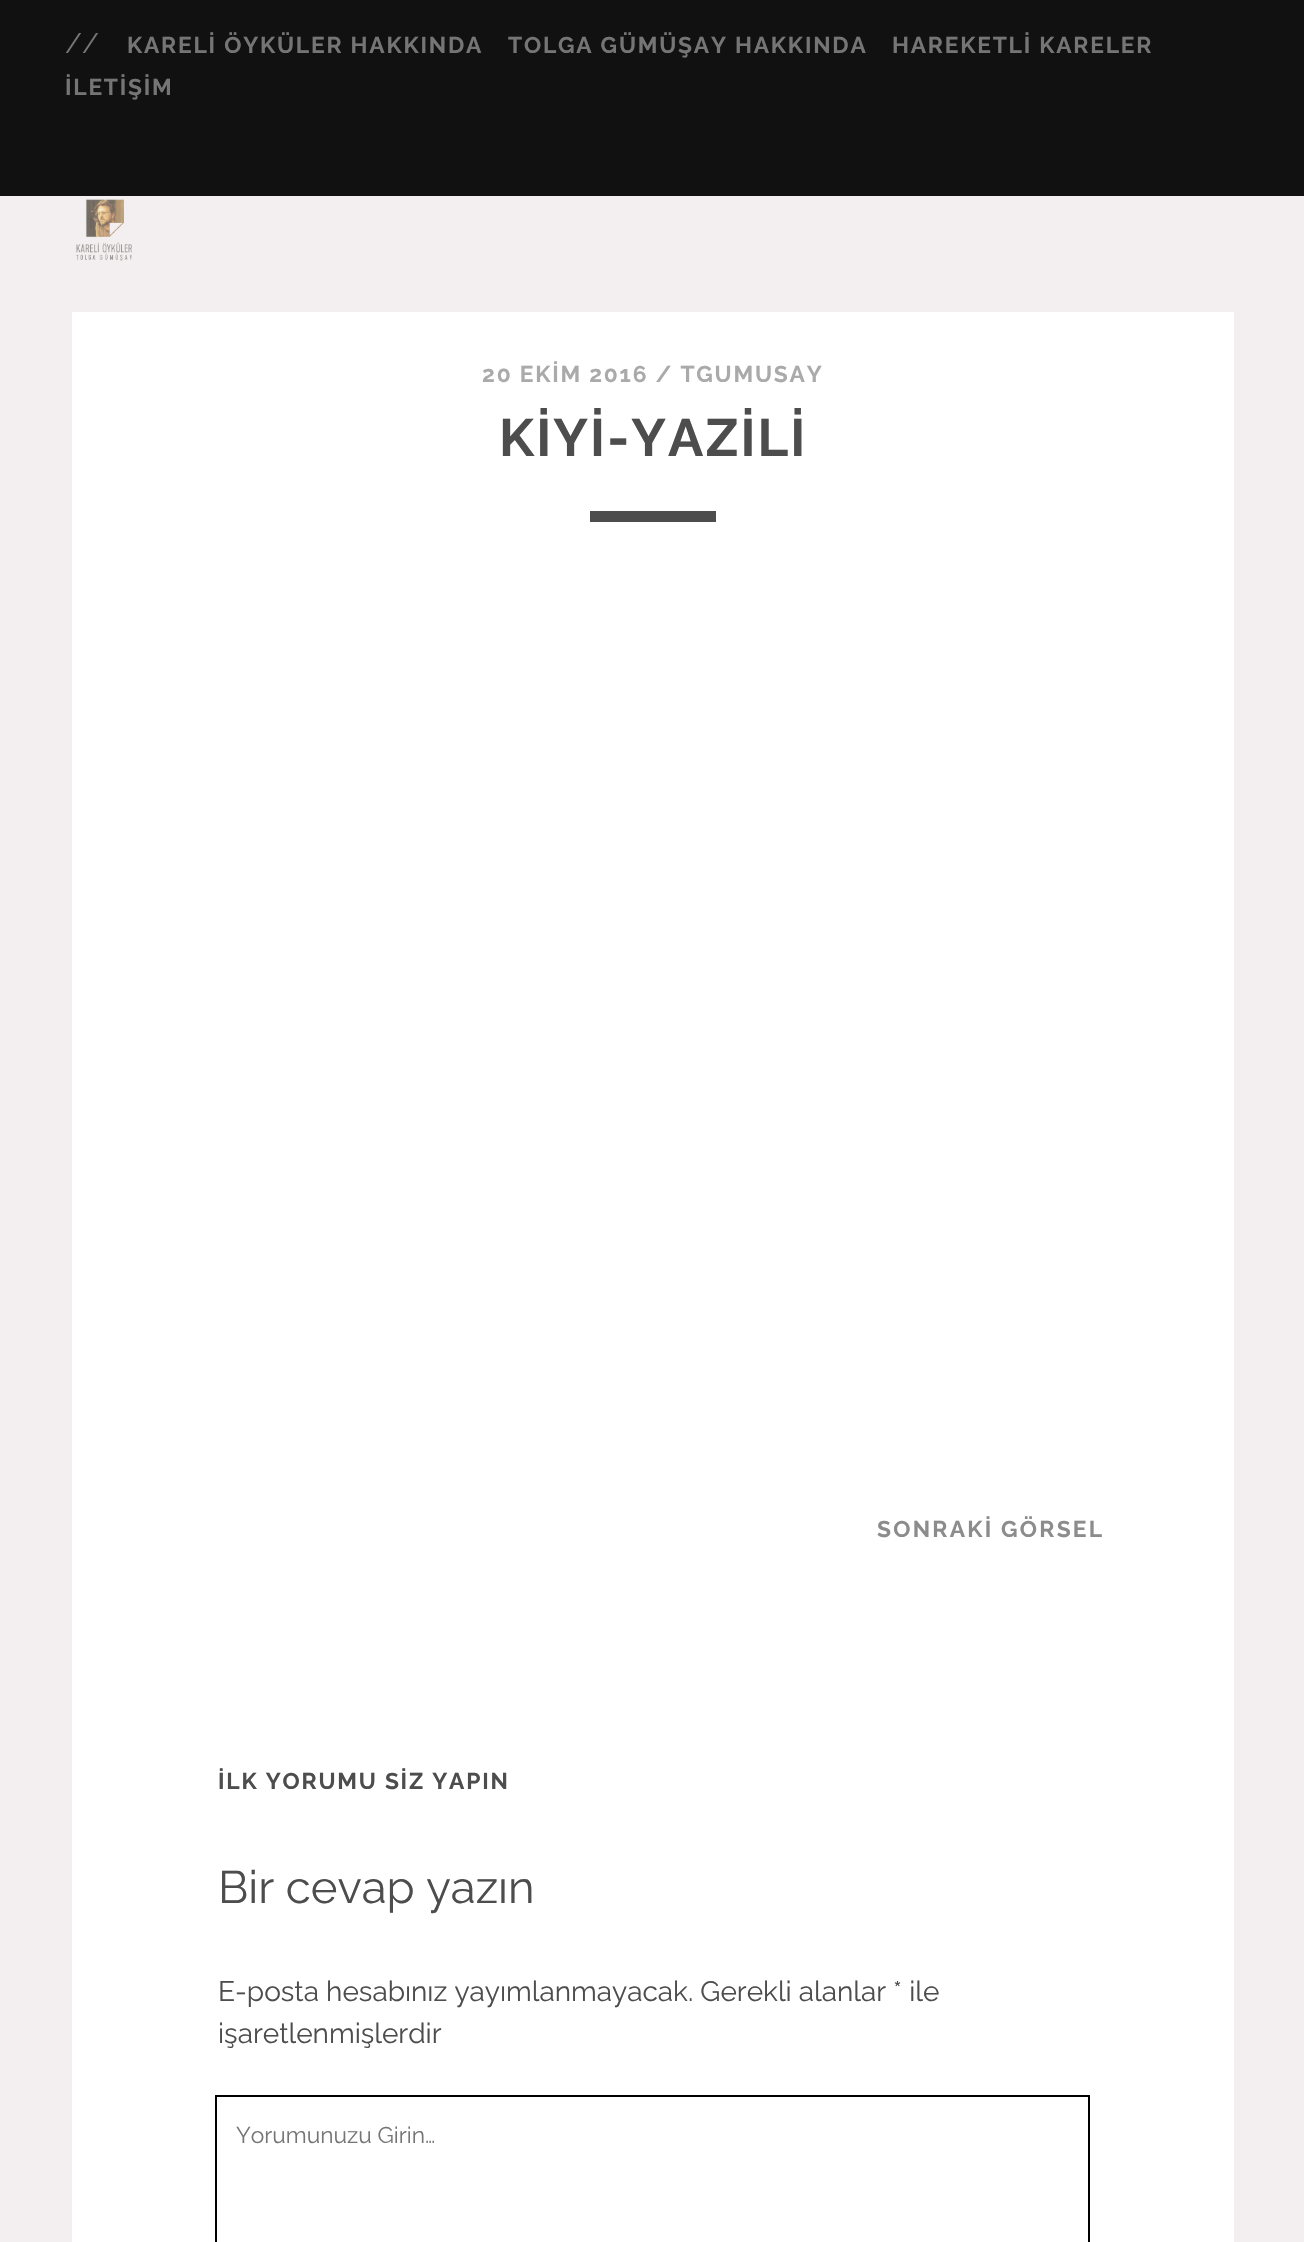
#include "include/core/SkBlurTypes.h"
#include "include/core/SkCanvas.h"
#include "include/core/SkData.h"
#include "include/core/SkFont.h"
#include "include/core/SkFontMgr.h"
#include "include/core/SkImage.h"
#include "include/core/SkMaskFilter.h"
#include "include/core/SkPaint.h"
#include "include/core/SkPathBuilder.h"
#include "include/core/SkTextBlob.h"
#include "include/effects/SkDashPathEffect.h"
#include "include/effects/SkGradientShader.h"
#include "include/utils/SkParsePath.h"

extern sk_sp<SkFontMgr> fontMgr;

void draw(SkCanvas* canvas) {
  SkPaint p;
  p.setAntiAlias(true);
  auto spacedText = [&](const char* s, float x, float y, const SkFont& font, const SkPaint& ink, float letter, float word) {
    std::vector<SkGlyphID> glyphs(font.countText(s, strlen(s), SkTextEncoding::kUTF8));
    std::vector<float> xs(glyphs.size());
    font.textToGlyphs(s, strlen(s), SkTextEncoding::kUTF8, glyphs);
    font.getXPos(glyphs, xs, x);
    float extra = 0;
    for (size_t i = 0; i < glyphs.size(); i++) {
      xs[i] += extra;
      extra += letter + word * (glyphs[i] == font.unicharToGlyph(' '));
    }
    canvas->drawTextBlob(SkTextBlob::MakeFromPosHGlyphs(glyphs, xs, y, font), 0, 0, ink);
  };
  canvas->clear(SkColorSetRGB(243, 239, 240));
  p.setColor(SkColorSetRGB(17, 17, 17));
  canvas->drawRect(SkRect::MakeLTRB(0, 0, 1304, 196), p);
  canvas->drawImageRect(SkImages::DeferredFromEncodedData(SkData::MakeFromFileName("images/1.png")), SkRect::MakeLTRB(76, 199, 132, 261), SkSamplingOptions());
  p.setColor(SK_ColorWHITE);
  canvas->drawRect(SkRect::MakeLTRB(72, 312, 1234, 2242), p);
  p.setColor(SkColorSetRGB(77, 77, 77));
  canvas->drawRect(SkRect::MakeLTRB(590, 511, 716, 522), p);
  p.setStyle(SkPaint::kStroke_Style);
  p.setStrokeWidth(2);
  p.setColor(SK_ColorBLACK);
  canvas->drawRect(SkRect::MakeLTRB(216, 2096, 1089, 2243), p);
  SkFont font1(fontMgr->matchFamilyStyle("Raleway", SkFontStyle::Normal()), 28);
  font1.setSubpixel(true);
  p.setStyle(SkPaint::kFill_Style);
  p.setColor(SkColorSetRGB(117, 117, 117));
  canvas->drawString("//", 65, 53, font1, p);
  SkFont font2(fontMgr->matchFamilyStyle("Raleway", SkFontStyle::Bold()), 22.75f);
  font2.setSubpixel(true);
  spacedText("KARELİ ÖYKÜLER HAKKINDA", 127, 53, font2, p, 1.8f, 0);
  spacedText("TOLGA GÜMÜŞAY HAKKINDA", 508, 53, font2, p, 1.8f, 0);
  spacedText("HAREKETLİ KARELER", 892, 53, font2, p, 1.8f, 0);
  spacedText("İLETİŞİM", 65, 95, font2, p, 1.8f, 0);
  p.setColor(SkColorSetRGB(170, 170, 170));
  spacedText("20 EKİM 2016 / TGUMUSAY", 482, 382, font2, p, 1.8f, 0);
  SkFont font3(fontMgr->matchFamilyStyle("Raleway", SkFontStyle::Bold()), 52.5f);
  font3.setSubpixel(true);
  p.setColor(SkColorSetRGB(77, 77, 77));
  spacedText("KİYİ-YAZİLİ", 499, 456, font3, p, 2.1f, 0);
  p.setColor(SkColorSetRGB(140, 140, 140));
  spacedText("SONRAKİ GÖRSEL", 877, 1537, font2, p, 2.25f, 0);
  p.setColor(SkColorSetRGB(77, 77, 77));
  spacedText("İLK YORUMU SİZ YAPIN", 218, 1789, font2, p, 1.8f, 0);
  SkFont font4(fontMgr->matchFamilyStyle("Raleway", SkFontStyle::Normal()), 45.5f);
  font4.setSubpixel(true);
  canvas->drawString("Bir cevap yazın", 218, 1903, font4, p);
  canvas->drawString("E-posta hesabınız yayımlanmayacak. Gerekli alanlar * ile", 218, 2001, font1, p);
  canvas->drawString("işaretlenmişlerdir", 218, 2043, font1, p);
  SkFont font5(fontMgr->matchFamilyStyle("Raleway", SkFontStyle::Normal()), 22.75f);
  font5.setSubpixel(true);
  p.setColor(SkColorSetRGB(117, 117, 117));
  canvas->drawString("Yorumunuzu Girin…", 236, 2143, font5, p);
}
